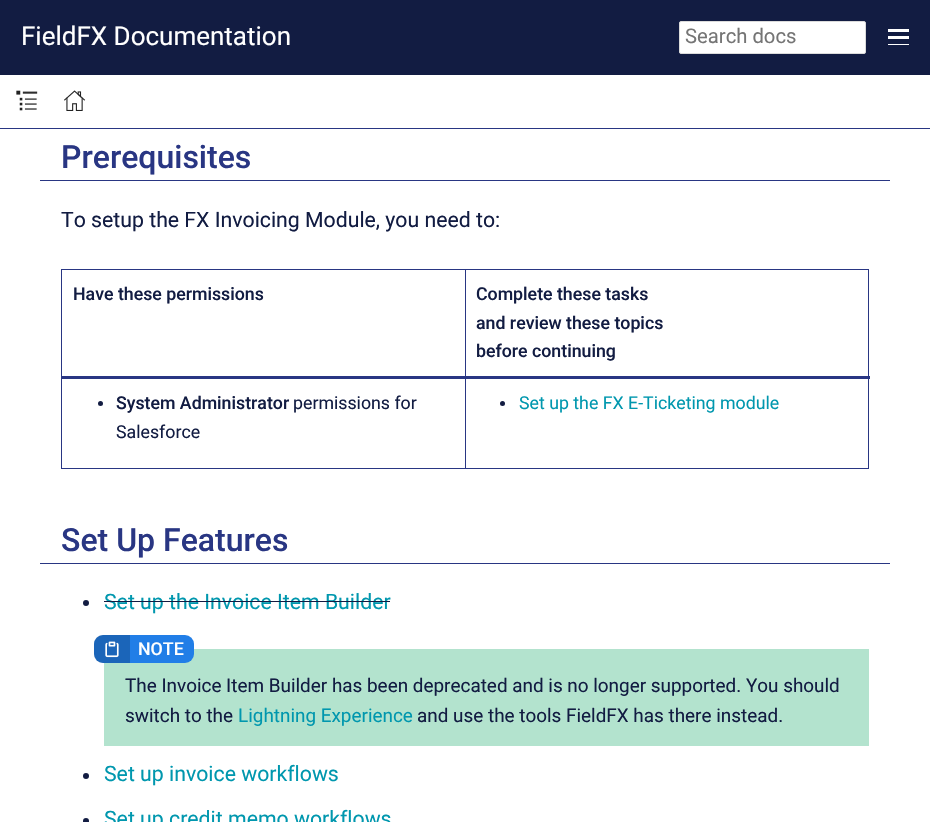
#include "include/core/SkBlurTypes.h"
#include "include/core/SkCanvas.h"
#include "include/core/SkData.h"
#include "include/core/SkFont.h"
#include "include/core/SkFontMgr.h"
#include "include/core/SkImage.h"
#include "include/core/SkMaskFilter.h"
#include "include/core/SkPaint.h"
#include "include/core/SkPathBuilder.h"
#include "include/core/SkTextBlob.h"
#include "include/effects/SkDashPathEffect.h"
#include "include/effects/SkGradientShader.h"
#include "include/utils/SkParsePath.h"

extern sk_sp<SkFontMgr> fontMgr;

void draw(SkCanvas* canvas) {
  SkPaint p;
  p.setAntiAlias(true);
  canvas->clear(SK_ColorWHITE);
  p.setColor(SkColorSetRGB(18, 28, 66));
  canvas->drawRect(SkRect::MakeLTRB(0, 0, 930, 75), p);
  p.setColor(SK_ColorWHITE);
  canvas->drawRoundRect(SkRect::MakeLTRB(679.5f, 21.5f, 865.5f, 53.5f), 1.5f, 1.5f, p);
  p.setStyle(SkPaint::kStroke_Style);
  p.setStrokeWidth(1);
  p.setColor(SkColorSetRGB(219, 219, 219));
  canvas->drawRoundRect(SkRect::MakeLTRB(679.5f, 21.5f, 865.5f, 53.5f), 1.5f, 1.5f, p);
  p.setStyle(SkPaint::kFill_Style);
  p.setColor(SK_ColorWHITE);
  canvas->drawRect(SkRect::MakeLTRB(888, 29, 909, 32), p);
  canvas->drawRect(SkRect::MakeLTRB(888, 36, 909, 39), p);
  canvas->drawRect(SkRect::MakeLTRB(888, 44, 909, 45), p);
  p.setColor(SkColorSetRGB(41, 54, 131));
  canvas->drawRect(SkRect::MakeLTRB(0, 128, 930, 129), p);
  canvas->drawImageRect(SkImages::DeferredFromEncodedData(SkData::MakeFromFileName("images/1.png")), SkRect::MakeLTRB(16, 90, 38, 111), SkSamplingOptions());
  canvas->drawImageRect(SkImages::DeferredFromEncodedData(SkData::MakeFromFileName("images/2.png")), SkRect::MakeLTRB(64, 90, 86, 111), SkSamplingOptions());
  canvas->drawRect(SkRect::MakeLTRB(40, 180, 890, 181), p);
  canvas->drawRect(SkRect::MakeLTRB(61, 269, 869, 270), p);
  canvas->drawRect(SkRect::MakeLTRB(868, 269, 869, 469), p);
  canvas->drawRect(SkRect::MakeLTRB(61, 468, 869, 469), p);
  canvas->drawRect(SkRect::MakeLTRB(61, 269, 62, 469), p);
  canvas->drawRect(SkRect::MakeLTRB(465, 269, 466, 469), p);
  canvas->drawRect(SkRect::MakeLTRB(61, 376, 870, 379), p);
  p.setColor(SkColorSetRGB(18, 28, 66));
  canvas->drawCircle(100.5f, 403.5f, 2.5f, p);
  canvas->drawCircle(502.5f, 403.5f, 2.5f, p);
  p.setColor(SkColorSetRGB(41, 54, 131));
  canvas->drawRect(SkRect::MakeLTRB(40, 563, 890, 564), p);
  p.setColor(SkColorSetRGB(18, 28, 66));
  canvas->drawCircle(86, 603, 3, p);
  p.setColor(SkColorSetRGB(179, 227, 206));
  canvas->drawRect(SkRect::MakeLTRB(104, 649, 869, 746), p);
  p.setColor(SkColorSetRGB(33, 126, 231));
  canvas->drawRoundRect(SkRect::MakeLTRB(94, 635, 194, 663), 9, 9, p);
  p.setColor(SkColorSetARGB(51, 0, 0, 0));
  canvas->drawPath(SkPathBuilder().moveTo(103, 635).lineTo(130, 635).lineTo(130, 663).lineTo(103, 663).cubicTo(98, 663, 94, 659, 94, 654).lineTo(94, 644).cubicTo(94, 639, 98, 635, 103, 635).close().detach(), p);
  canvas->drawImageRect(SkImages::DeferredFromEncodedData(SkData::MakeFromFileName("images/3.png")), SkRect::MakeLTRB(105, 641, 119, 658), SkSamplingOptions());
  p.setColor(SkColorSetRGB(18, 28, 66));
  canvas->drawCircle(86, 776, 3, p);
  canvas->drawCircle(86, 821, 3, p);
  SkFont font1(fontMgr->matchFamilyStyle("Roboto", SkFontStyle::Normal()), 26);
  font1.setSubpixel(true);
  p.setColor(SK_ColorWHITE);
  canvas->drawString("FieldFX Documentation", 21, 45, font1, p);
  SkFont font2(fontMgr->matchFamilyStyle("Roboto", SkFontStyle::Normal()), 20.25f);
  font2.setSubpixel(true);
  p.setColor(SkColorSetRGB(117, 117, 117));
  canvas->drawString("Search docs", 685, 43, font2, p);
  SkFont font3(fontMgr->matchFamilyStyle("Roboto", SkFontStyle(500, SkFontStyle::kNormal_Width, SkFontStyle::kUpright_Slant)), 32);
  font3.setSubpixel(true);
  p.setColor(SkColorSetRGB(41, 54, 131));
  canvas->drawString("Prerequisites", 61, 168, font3, p);
  SkFont font4(fontMgr->matchFamilyStyle("Roboto", SkFontStyle::Normal()), 21.25f);
  font4.setSubpixel(true);
  p.setColor(SkColorSetRGB(18, 28, 66));
  canvas->drawString("To setup the FX Invoicing Module, you need to:", 61, 227, font4, p);
  SkFont font5(fontMgr->matchFamilyStyle("Roboto", SkFontStyle(500, SkFontStyle::kNormal_Width, SkFontStyle::kUpright_Slant)), 17.75f);
  font5.setSubpixel(true);
  canvas->drawString("Have these permissions", 73, 300, font5, p);
  canvas->drawString("Complete these tasks", 476, 300, font5, p);
  canvas->drawString("and review these topics", 476, 329, font5, p);
  canvas->drawString("before continuing", 476, 357, font5, p);
  canvas->drawString("System Administrator", 116, 409, font5, p);
  SkFont font6(fontMgr->matchFamilyStyle("Roboto", SkFontStyle::Normal()), 17.75f);
  font6.setSubpixel(true);
  canvas->drawString("permissions for", 293, 409, font6, p);
  canvas->drawString("Salesforce", 116, 438, font6, p);
  p.setColor(SkColorSetRGB(0, 151, 174));
  canvas->drawString("Set up the FX E-Ticketing module", 519, 409, font6, p);
  p.setColor(SkColorSetRGB(41, 54, 131));
  canvas->drawString("Set Up Features", 61, 551, font3, p);
  p.setColor(SkColorSetRGB(0, 151, 174));
  canvas->drawString("Set up the Invoice Item Builder", 104, 609, font4, p);
  p.setColor(SkColorSetRGB(18, 28, 66));
  canvas->drawRect(SkRect::MakeLTRB(104, 601, 390, 602), p);
  p.setColor(SK_ColorWHITE);
  canvas->drawString("NOTE", 138, 655, font5, p);
  SkFont font7(fontMgr->matchFamilyStyle("Roboto", SkFontStyle::Normal()), 18.9f);
  font7.setSubpixel(true);
  p.setColor(SkColorSetRGB(18, 28, 66));
  canvas->drawString("The Invoice Item Builder has been deprecated and is no longer supported. You should", 125, 692, font7, p);
  canvas->drawString("switch to the", 125, 722, font7, p);
  p.setColor(SkColorSetRGB(0, 151, 174));
  canvas->drawString("Lightning Experience", 238, 722, font7, p);
  p.setColor(SkColorSetRGB(18, 28, 66));
  canvas->drawString("and use the tools FieldFX has there instead.", 417, 722, font7, p);
  p.setColor(SkColorSetRGB(0, 151, 174));
  canvas->drawString("Set up invoice workflows", 104, 781, font4, p);
  canvas->drawString("Set up credit memo workflows", 104, 826, font4, p);
}
